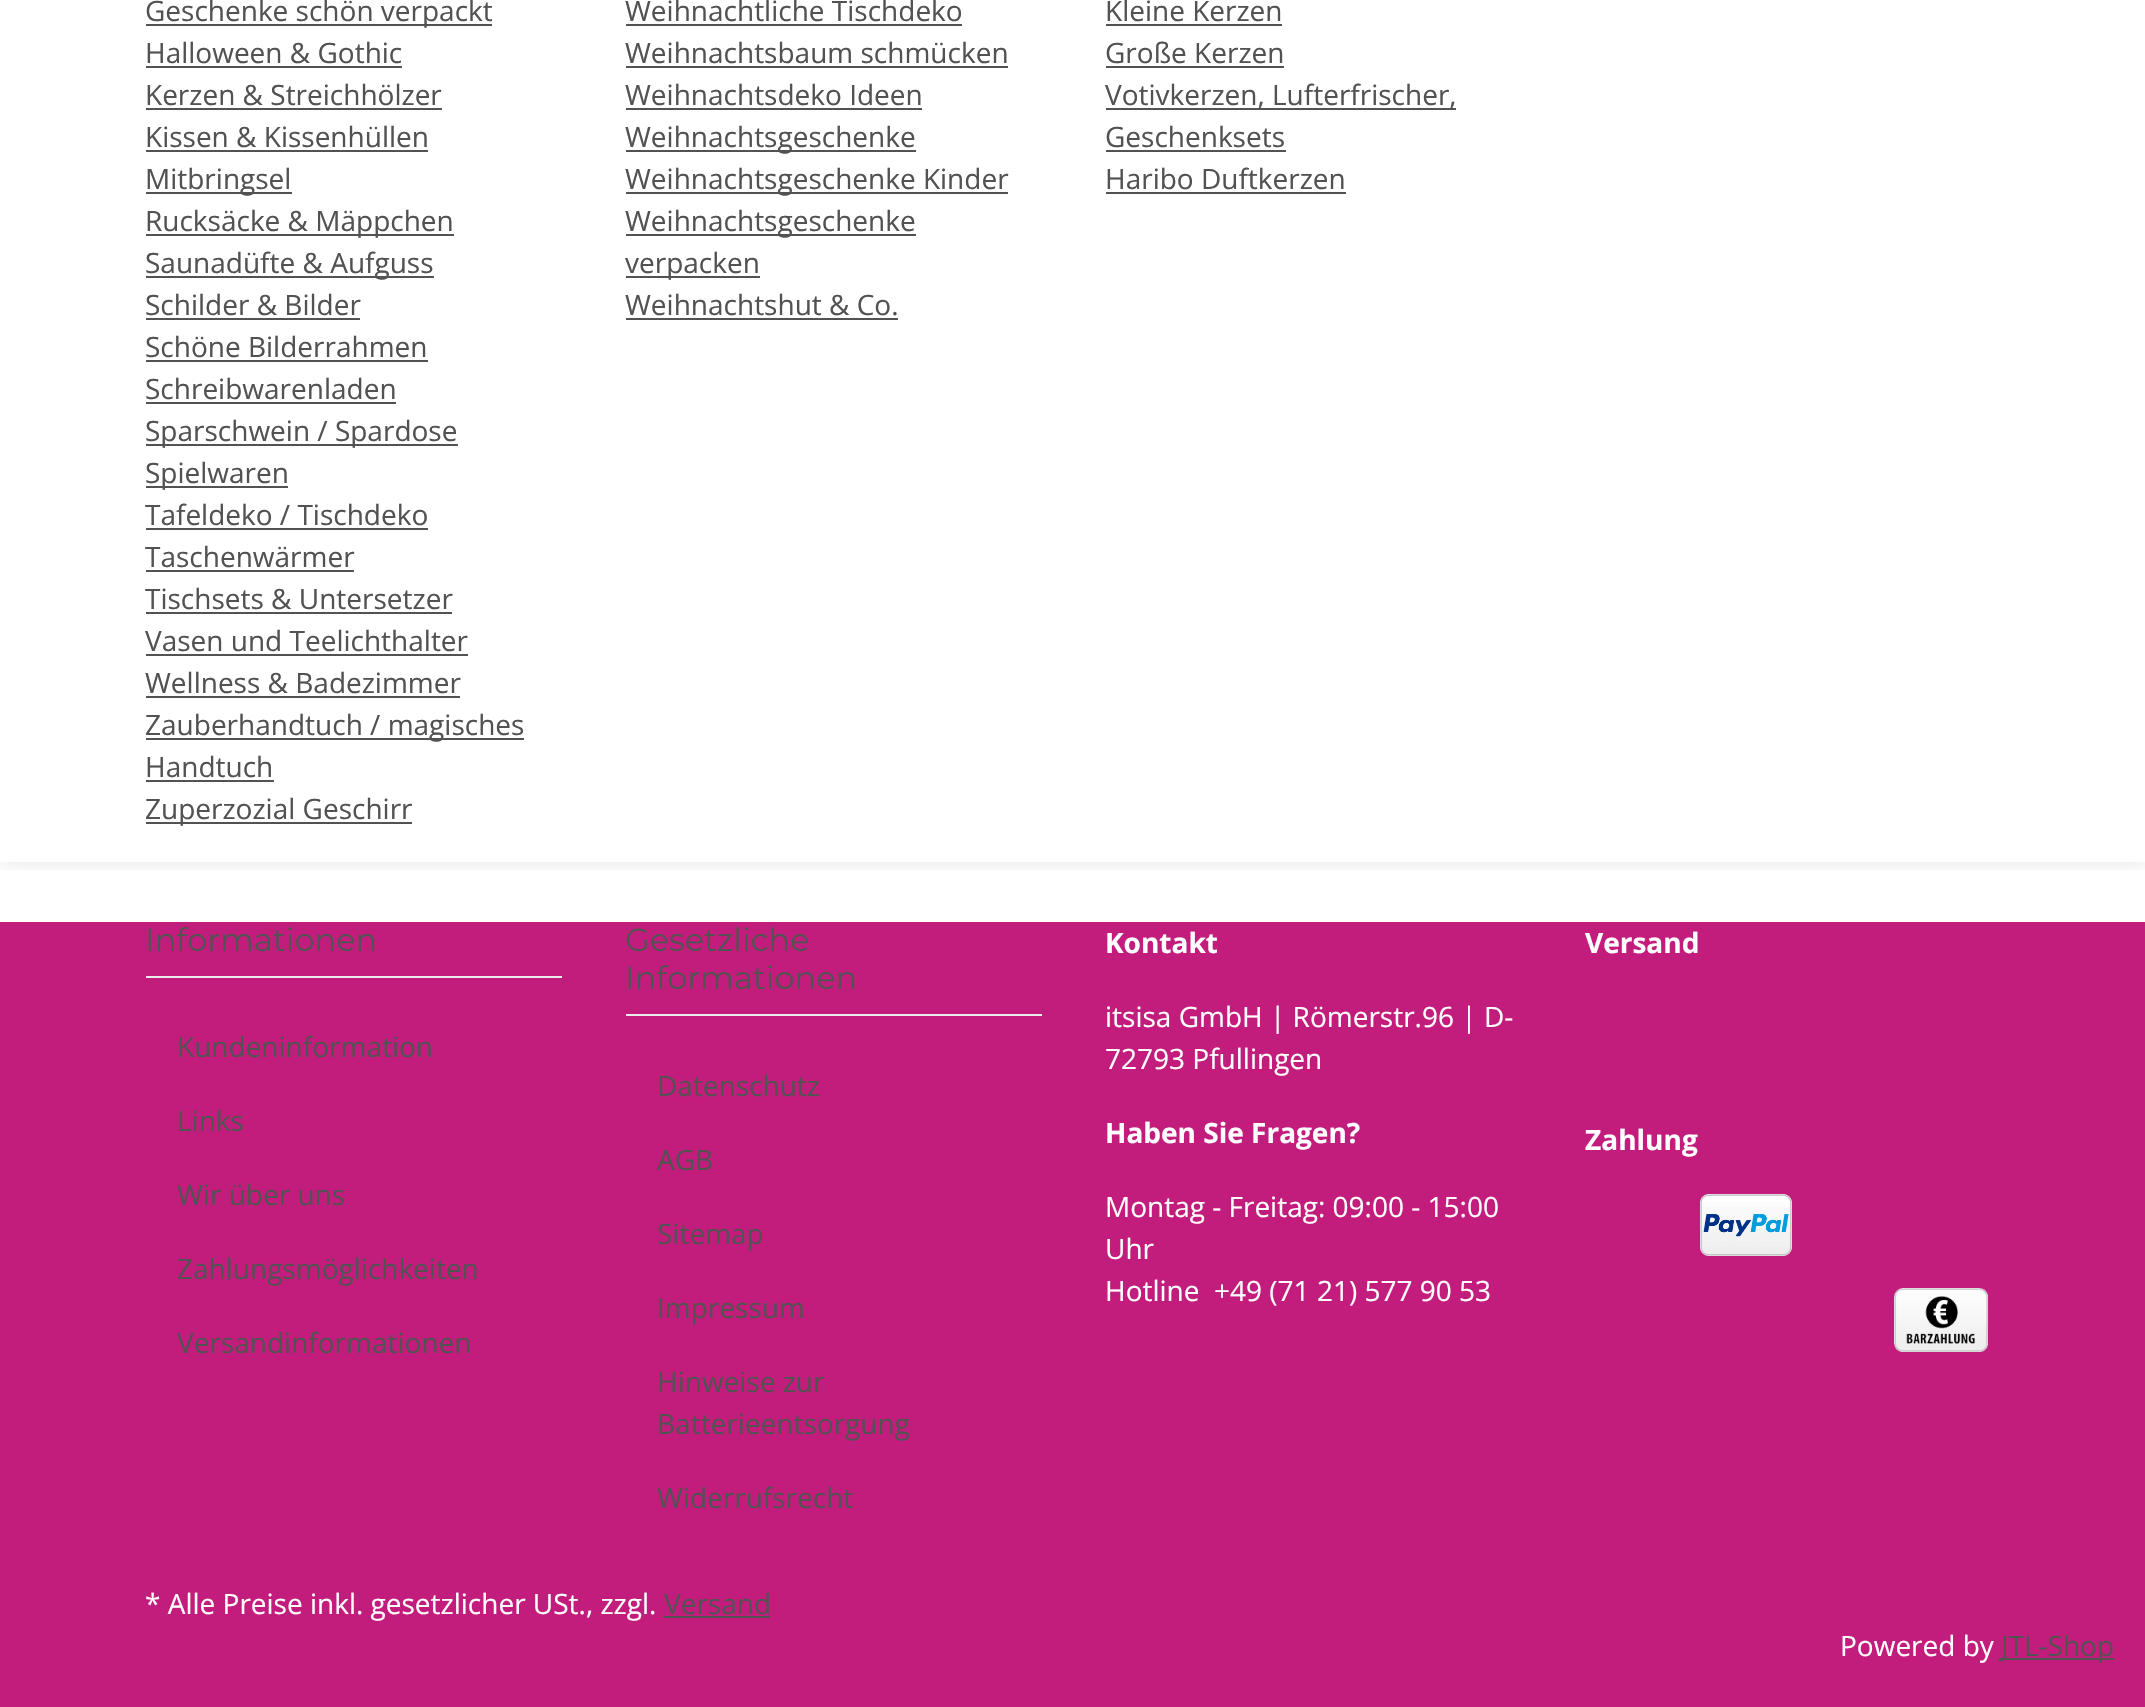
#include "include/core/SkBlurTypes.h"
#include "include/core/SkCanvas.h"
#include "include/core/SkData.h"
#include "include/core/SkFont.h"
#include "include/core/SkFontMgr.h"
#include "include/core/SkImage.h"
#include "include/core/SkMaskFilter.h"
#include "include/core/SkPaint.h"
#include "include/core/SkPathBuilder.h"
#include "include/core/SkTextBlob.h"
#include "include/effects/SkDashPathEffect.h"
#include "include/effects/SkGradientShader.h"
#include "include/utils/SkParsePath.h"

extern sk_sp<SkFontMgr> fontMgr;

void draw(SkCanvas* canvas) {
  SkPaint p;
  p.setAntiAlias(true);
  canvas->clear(SK_ColorWHITE);
  canvas->save();
  canvas->clipRect(SkRect::MakeLTRB(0, 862, 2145, 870));
  p.setColor(SkColorSetARGB(26, 0, 0, 0));
  p.setMaskFilter(SkMaskFilter::MakeBlur(kNormal_SkBlurStyle, 10));
  canvas->drawRect(SkRect::MakeLTRB(0, -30, 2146, 862), p);
  p.setMaskFilter(nullptr);
  canvas->restore();
  p.setColor(SkColorSetRGB(82, 82, 82));
  canvas->drawRect(SkRect::MakeLTRB(146, 24, 492, 26), p);
  canvas->drawRect(SkRect::MakeLTRB(146, 66, 402, 68), p);
  canvas->drawRect(SkRect::MakeLTRB(146, 108, 442, 110), p);
  canvas->drawRect(SkRect::MakeLTRB(146, 150, 428, 152), p);
  canvas->drawRect(SkRect::MakeLTRB(146, 192, 292, 194), p);
  canvas->drawRect(SkRect::MakeLTRB(146, 234, 454, 236), p);
  canvas->drawRect(SkRect::MakeLTRB(146, 276, 434, 278), p);
  canvas->drawRect(SkRect::MakeLTRB(146, 318, 360, 320), p);
  canvas->drawRect(SkRect::MakeLTRB(146, 360, 428, 362), p);
  canvas->drawRect(SkRect::MakeLTRB(146, 402, 396, 404), p);
  canvas->drawRect(SkRect::MakeLTRB(146, 444, 458, 446), p);
  canvas->drawRect(SkRect::MakeLTRB(146, 486, 288, 488), p);
  canvas->drawRect(SkRect::MakeLTRB(146, 528, 428, 530), p);
  canvas->drawRect(SkRect::MakeLTRB(146, 570, 354, 572), p);
  canvas->drawRect(SkRect::MakeLTRB(146, 612, 452, 614), p);
  canvas->drawRect(SkRect::MakeLTRB(146, 654, 468, 656), p);
  canvas->drawRect(SkRect::MakeLTRB(146, 696, 460, 698), p);
  canvas->drawRect(SkRect::MakeLTRB(146, 738, 524, 740), p);
  canvas->drawRect(SkRect::MakeLTRB(146, 780, 274, 782), p);
  canvas->drawRect(SkRect::MakeLTRB(146, 822, 412, 824), p);
  canvas->drawRect(SkRect::MakeLTRB(626, 24, 962, 26), p);
  canvas->drawRect(SkRect::MakeLTRB(626, 66, 1008, 68), p);
  canvas->drawRect(SkRect::MakeLTRB(626, 108, 922, 110), p);
  canvas->drawRect(SkRect::MakeLTRB(626, 150, 916, 152), p);
  canvas->drawRect(SkRect::MakeLTRB(626, 192, 1008, 194), p);
  canvas->drawRect(SkRect::MakeLTRB(626, 234, 916, 236), p);
  canvas->drawRect(SkRect::MakeLTRB(626, 276, 760, 278), p);
  canvas->drawRect(SkRect::MakeLTRB(626, 318, 898, 320), p);
  canvas->drawRect(SkRect::MakeLTRB(1106, 24, 1282, 26), p);
  canvas->drawRect(SkRect::MakeLTRB(1106, 66, 1284, 68), p);
  canvas->drawRect(SkRect::MakeLTRB(1106, 108, 1456, 110), p);
  canvas->drawRect(SkRect::MakeLTRB(1106, 150, 1286, 152), p);
  canvas->drawRect(SkRect::MakeLTRB(1106, 192, 1346, 194), p);
  p.setColor(SkColorSetRGB(194, 29, 125));
  canvas->drawRect(SkRect::MakeLTRB(0, 922, 2145, 1707), p);
  p.setColor(SkColorSetRGB(235, 235, 235));
  canvas->drawRect(SkRect::MakeLTRB(146, 976, 562, 978), p);
  canvas->drawRect(SkRect::MakeLTRB(626, 1014, 1042, 1016), p);
  canvas->drawImageRect(SkImages::DeferredFromEncodedData(SkData::MakeFromFileName("images/1.png")), SkRect::MakeLTRB(1700, 1194, 1792, 1256), SkSamplingOptions());
  canvas->drawImageRect(SkImages::DeferredFromEncodedData(SkData::MakeFromFileName("images/2.png")), SkRect::MakeLTRB(1894, 1288, 1988, 1352), SkSamplingOptions());
  p.setColor(SkColorSetRGB(82, 82, 82));
  canvas->drawRect(SkRect::MakeLTRB(664, 1616, 770, 1618), p);
  canvas->drawRect(SkRect::MakeLTRB(2000, 1658, 2114, 1660), p);
  SkFont font1(fontMgr->matchFamilyStyle("Open Sans", SkFontStyle::Normal()), 28);
  font1.setSubpixel(true);
  canvas->drawString("Geschenke schön verpackt", 145, 21, font1, p);
  canvas->drawString("Halloween & Gothic", 145, 63, font1, p);
  canvas->drawString("Kerzen & Streichhölzer", 145, 105, font1, p);
  canvas->drawString("Kissen & Kissenhüllen", 145, 147, font1, p);
  canvas->drawString("Mitbringsel", 145, 189, font1, p);
  canvas->drawString("Rucksäcke & Mäppchen", 145, 231, font1, p);
  canvas->drawString("Saunadüfte & Aufguss", 145, 273, font1, p);
  canvas->drawString("Schilder & Bilder", 145, 315, font1, p);
  canvas->drawString("Schöne Bilderrahmen", 145, 357, font1, p);
  canvas->drawString("Schreibwarenladen", 145, 399, font1, p);
  canvas->drawString("Sparschwein / Spardose", 145, 441, font1, p);
  canvas->drawString("Spielwaren", 145, 483, font1, p);
  canvas->drawString("Tafeldeko / Tischdeko", 145, 525, font1, p);
  canvas->drawString("Taschenwärmer", 145, 567, font1, p);
  canvas->drawString("Tischsets & Untersetzer", 145, 609, font1, p);
  canvas->drawString("Vasen und Teelichthalter", 145, 651, font1, p);
  canvas->drawString("Wellness & Badezimmer", 145, 693, font1, p);
  canvas->drawString("Zauberhandtuch / magisches", 145, 735, font1, p);
  canvas->drawString("Handtuch", 145, 777, font1, p);
  canvas->drawString("Zuperzozial Geschirr", 145, 819, font1, p);
  canvas->drawString("Weihnachtliche Tischdeko", 625, 21, font1, p);
  canvas->drawString("Weihnachtsbaum schmücken", 625, 63, font1, p);
  canvas->drawString("Weihnachtsdeko Ideen", 625, 105, font1, p);
  canvas->drawString("Weihnachtsgeschenke", 625, 147, font1, p);
  canvas->drawString("Weihnachtsgeschenke Kinder", 625, 189, font1, p);
  canvas->drawString("Weihnachtsgeschenke", 625, 231, font1, p);
  canvas->drawString("verpacken", 625, 273, font1, p);
  canvas->drawString("Weihnachtshut & Co.", 625, 315, font1, p);
  canvas->drawString("Kleine Kerzen", 1105, 21, font1, p);
  canvas->drawString("Große Kerzen", 1105, 63, font1, p);
  canvas->drawString("Votivkerzen, Lufterfrischer,", 1105, 105, font1, p);
  canvas->drawString("Geschenksets", 1105, 147, font1, p);
  canvas->drawString("Haribo Duftkerzen", 1105, 189, font1, p);
  SkFont font2(fontMgr->matchFamilyStyle("Montserrat", SkFontStyle::Normal()), 32);
  font2.setSubpixel(true);
  canvas->drawString("Informationen", 145, 951, font2, p);
  canvas->drawString("Kundeninformation", 177, 1057, font1, p);
  canvas->drawString("Links", 177, 1131, font1, p);
  canvas->drawString("Wir über uns", 177, 1205, font1, p);
  canvas->drawString("Zahlungsmöglichkeiten", 177, 1279, font1, p);
  canvas->drawString("Versandinformationen", 177, 1353, font1, p);
  canvas->drawString("Gesetzliche", 625, 951, font2, p);
  canvas->drawString("Informationen", 625, 989, font2, p);
  canvas->drawString("Datenschutz", 657, 1096, font1, p);
  canvas->drawString("AGB", 657, 1170, font1, p);
  canvas->drawString("Sitemap", 657, 1244, font1, p);
  canvas->drawString("Impressum", 657, 1318, font1, p);
  canvas->drawString("Hinweise zur", 657, 1392, font1, p);
  canvas->drawString("Batterieentsorgung", 657, 1434, font1, p);
  canvas->drawString("Widerrufsrecht", 657, 1508, font1, p);
  SkFont font3(fontMgr->matchFamilyStyle("Open Sans", SkFontStyle::Bold()), 28);
  font3.setSubpixel(true);
  p.setColor(SK_ColorWHITE);
  canvas->drawString("Kontakt", 1105, 953, font3, p);
  canvas->drawString("itsisa GmbH | Römerstr.96 | D-", 1105, 1027, font1, p);
  canvas->drawString("72793 Pfullingen", 1105, 1069, font1, p);
  canvas->drawString("Haben Sie Fragen?", 1105, 1143, font3, p);
  canvas->drawString("Montag - Freitag: 09:00 - 15:00", 1105, 1217, font1, p);
  canvas->drawString("Uhr", 1105, 1259, font1, p);
  canvas->drawString("Hotline  +49 (71 21) 577 90 53", 1105, 1301, font1, p);
  canvas->drawString("Versand", 1585, 953, font3, p);
  canvas->drawString("Zahlung", 1585, 1150, font3, p);
  canvas->drawString("* Alle Preise inkl. gesetzlicher USt., zzgl.", 145, 1614, font1, p);
  p.setColor(SkColorSetRGB(82, 82, 82));
  canvas->drawString("Versand", 664, 1614, font1, p);
  p.setColor(SK_ColorWHITE);
  canvas->drawString("Powered by", 1840, 1656, font1, p);
  p.setColor(SkColorSetRGB(82, 82, 82));
  canvas->drawString("JTL-Shop", 2001, 1656, font1, p);
}
